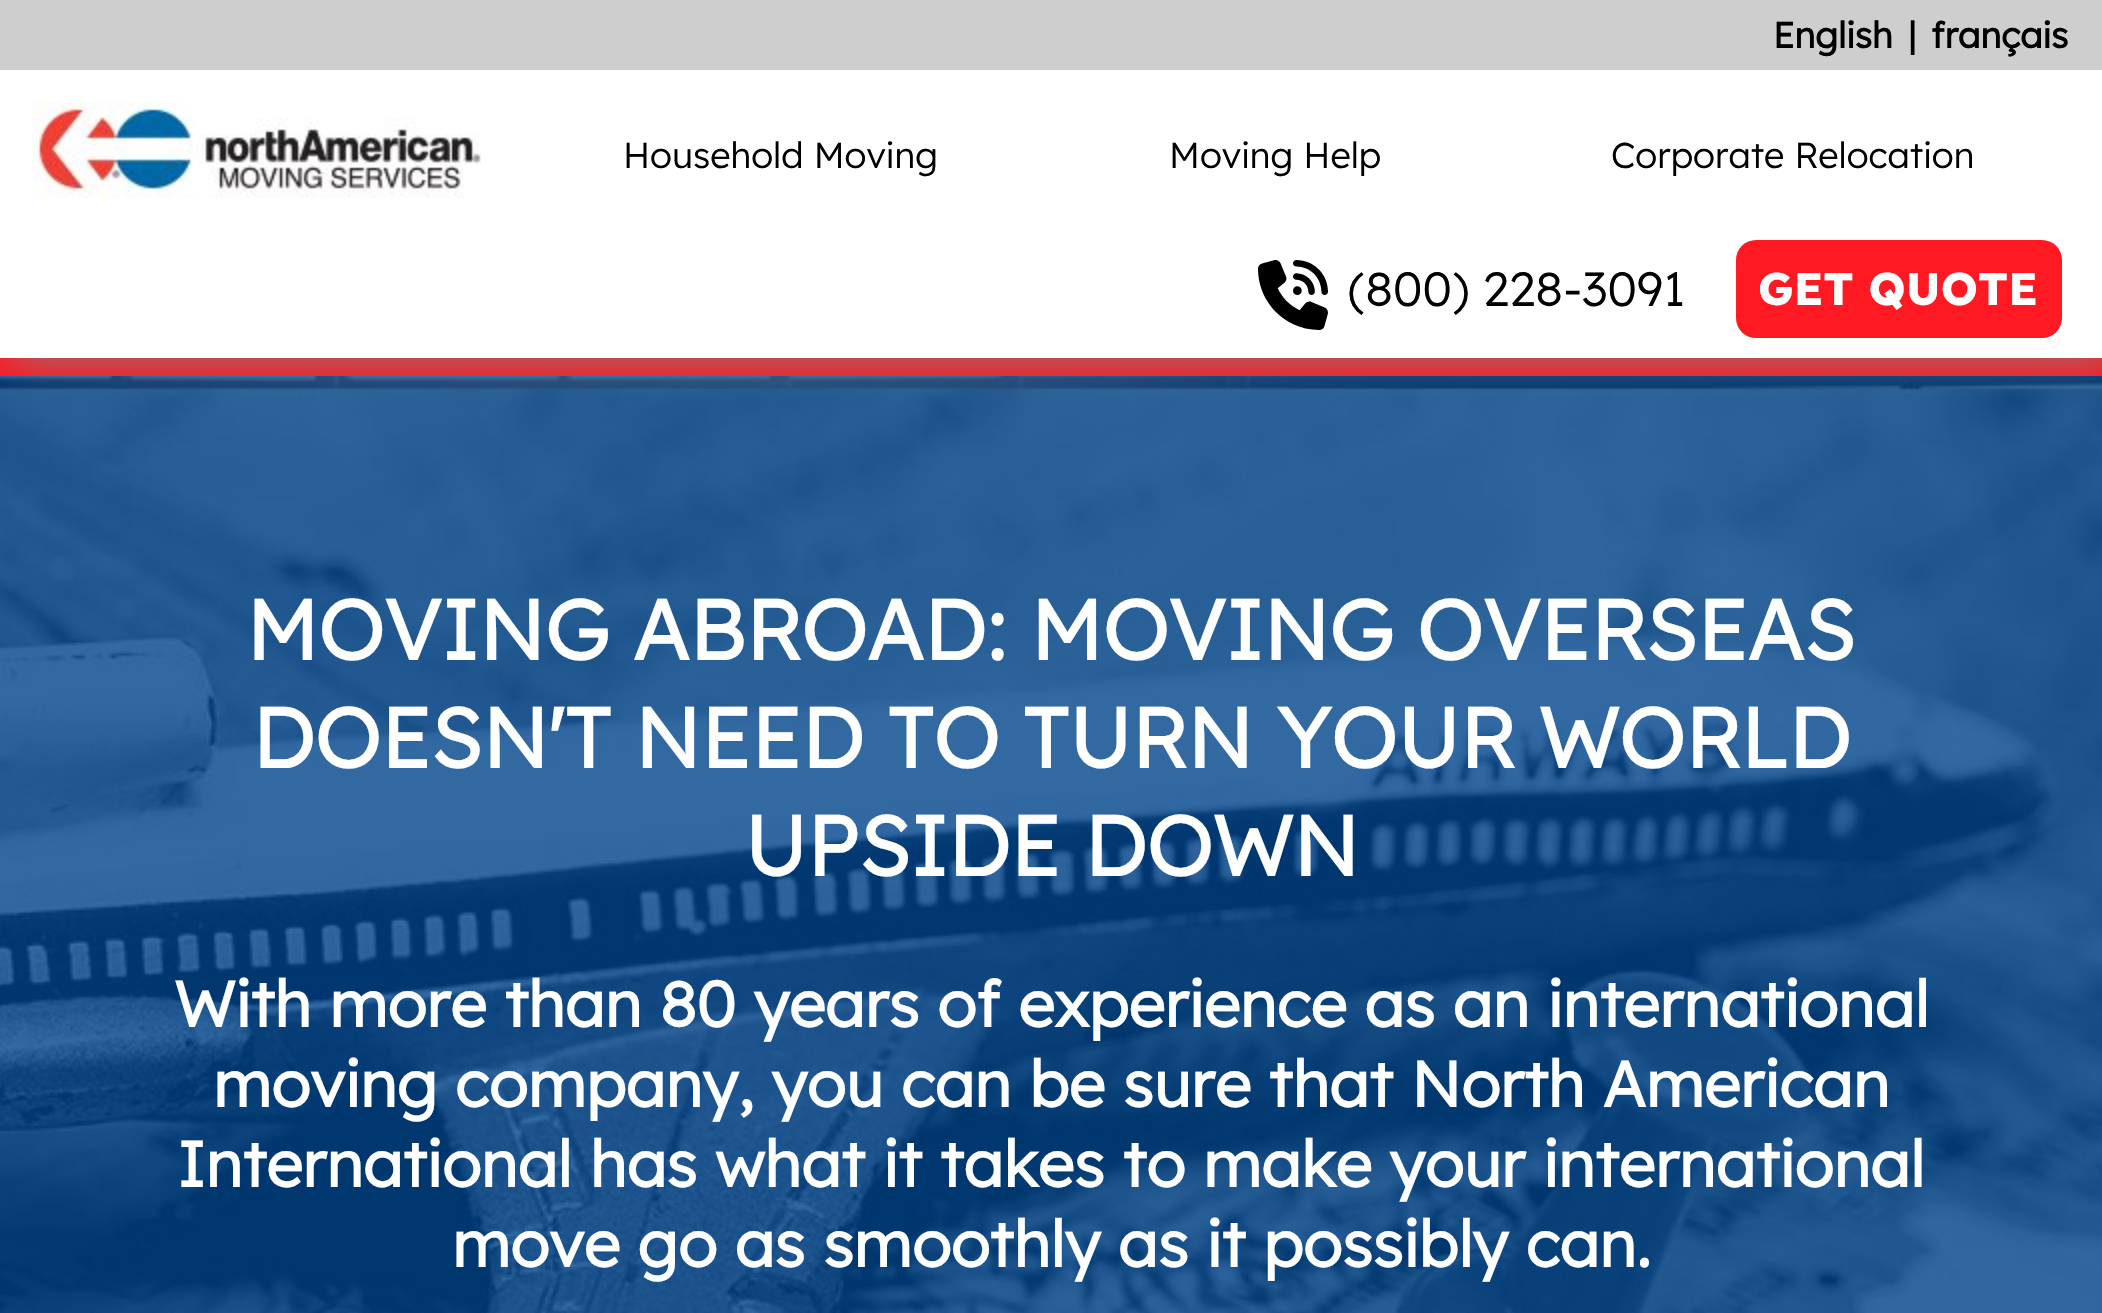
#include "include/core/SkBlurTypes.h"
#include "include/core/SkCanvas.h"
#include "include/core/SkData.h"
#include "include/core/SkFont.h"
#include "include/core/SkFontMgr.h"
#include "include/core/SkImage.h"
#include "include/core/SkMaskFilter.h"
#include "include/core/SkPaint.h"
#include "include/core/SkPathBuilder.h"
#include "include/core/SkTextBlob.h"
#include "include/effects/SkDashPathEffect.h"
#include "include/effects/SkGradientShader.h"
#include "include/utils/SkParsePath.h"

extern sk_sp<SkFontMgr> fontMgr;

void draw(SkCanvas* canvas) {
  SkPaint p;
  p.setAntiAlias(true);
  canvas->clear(SK_ColorWHITE);
  p.setColor(SkColorSetRGB(255, 25, 35));
  canvas->drawRect(SkRect::MakeLTRB(0, 358, 2102, 376), p);
  canvas->drawImageRect(SkImages::DeferredFromEncodedData(SkData::MakeFromFileName("images/3.png")), SkRect::MakeLTRB(0, 376, 2102, 1313), SkSamplingOptions());
  canvas->save();
  canvas->clipRect(SkRect::MakeLTRB(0, 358, 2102, 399));
  p.setColor(SkColorSetRGB(128, 128, 128));
  p.setMaskFilter(SkMaskFilter::MakeBlur(kNormal_SkBlurStyle, 20));
  canvas->drawRect(SkRect::MakeLTRB(10, 0, 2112, 358), p);
  p.setMaskFilter(nullptr);
  canvas->restore();
  p.setColor(SkColorSetRGB(206, 206, 206));
  canvas->drawRect(SkRect::MakeLTRB(0, 0, 2102, 70), p);
  canvas->drawImageRect(SkImages::DeferredFromEncodedData(SkData::MakeFromFileName("images/1.png")), SkRect::MakeLTRB(31, 101, 481, 199), SkSamplingOptions());
  canvas->drawImageRect(SkImages::DeferredFromEncodedData(SkData::MakeFromFileName("images/2.png")), SkRect::MakeLTRB(1258, 260, 1328, 330), SkSamplingOptions());
  p.setColor(SkColorSetRGB(255, 25, 35));
  canvas->drawRoundRect(SkRect::MakeLTRB(1736, 240, 2062, 338), 20, 20, p);
  SkFont font1(fontMgr->matchFamilyStyle("Lexend", SkFontStyle::Bold()), 36);
  font1.setSubpixel(true);
  p.setColor(SK_ColorBLACK);
  canvas->drawString("English", 1773, 48, font1, p);
  canvas->drawString("|", 1908, 48, font1, p);
  canvas->drawString("français", 1931, 48, font1, p);
  SkFont font2(fontMgr->matchFamilyStyle("Lexend", SkFontStyle::Normal()), 36);
  font2.setSubpixel(true);
  canvas->drawString("Household Moving", 623, 168, font2, p);
  canvas->drawString("Moving Help", 1169, 168, font2, p);
  canvas->drawString("Corporate Relocation", 1611, 168, font2, p);
  SkFont font3(fontMgr->matchFamilyStyle("Lexend", SkFontStyle::Normal()), 48);
  font3.setSubpixel(true);
  canvas->drawString("(800) 228-3091", 1348, 306, font3, p);
  SkFont font4(fontMgr->matchFamilyStyle("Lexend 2", SkFontStyle::Bold()), 45.5f);
  font4.setSubpixel(true);
  p.setColor(SK_ColorWHITE);
  canvas->drawString("GET QUOTE", 1758, 305, font4, p);
  SkFont font5(fontMgr->matchFamilyStyle("Lexend", SkFontStyle::Bold()), 84);
  font5.setSubpixel(true);
  canvas->drawString("MOVING ABROAD: MOVING OVERSEAS", 246, 660, font5, p);
  canvas->drawString("DOESN'T NEED TO TURN YOUR WORLD", 252, 768, font5, p);
  canvas->drawString("UPSIDE DOWN", 744, 876, font5, p);
  SkFont font6(fontMgr->matchFamilyStyle("Lexend", SkFontStyle::Bold()), 64);
  font6.setSubpixel(true);
  canvas->drawString("With more than 80 years of experience as an international", 174, 1027, font6, p);
  canvas->drawString("moving company, you can be sure that North American", 213, 1107, font6, p);
  canvas->drawString("International has what it takes to make your international", 177, 1187, font6, p);
  canvas->drawString("move go as smoothly as it possibly can.", 452, 1267, font6, p);
}
